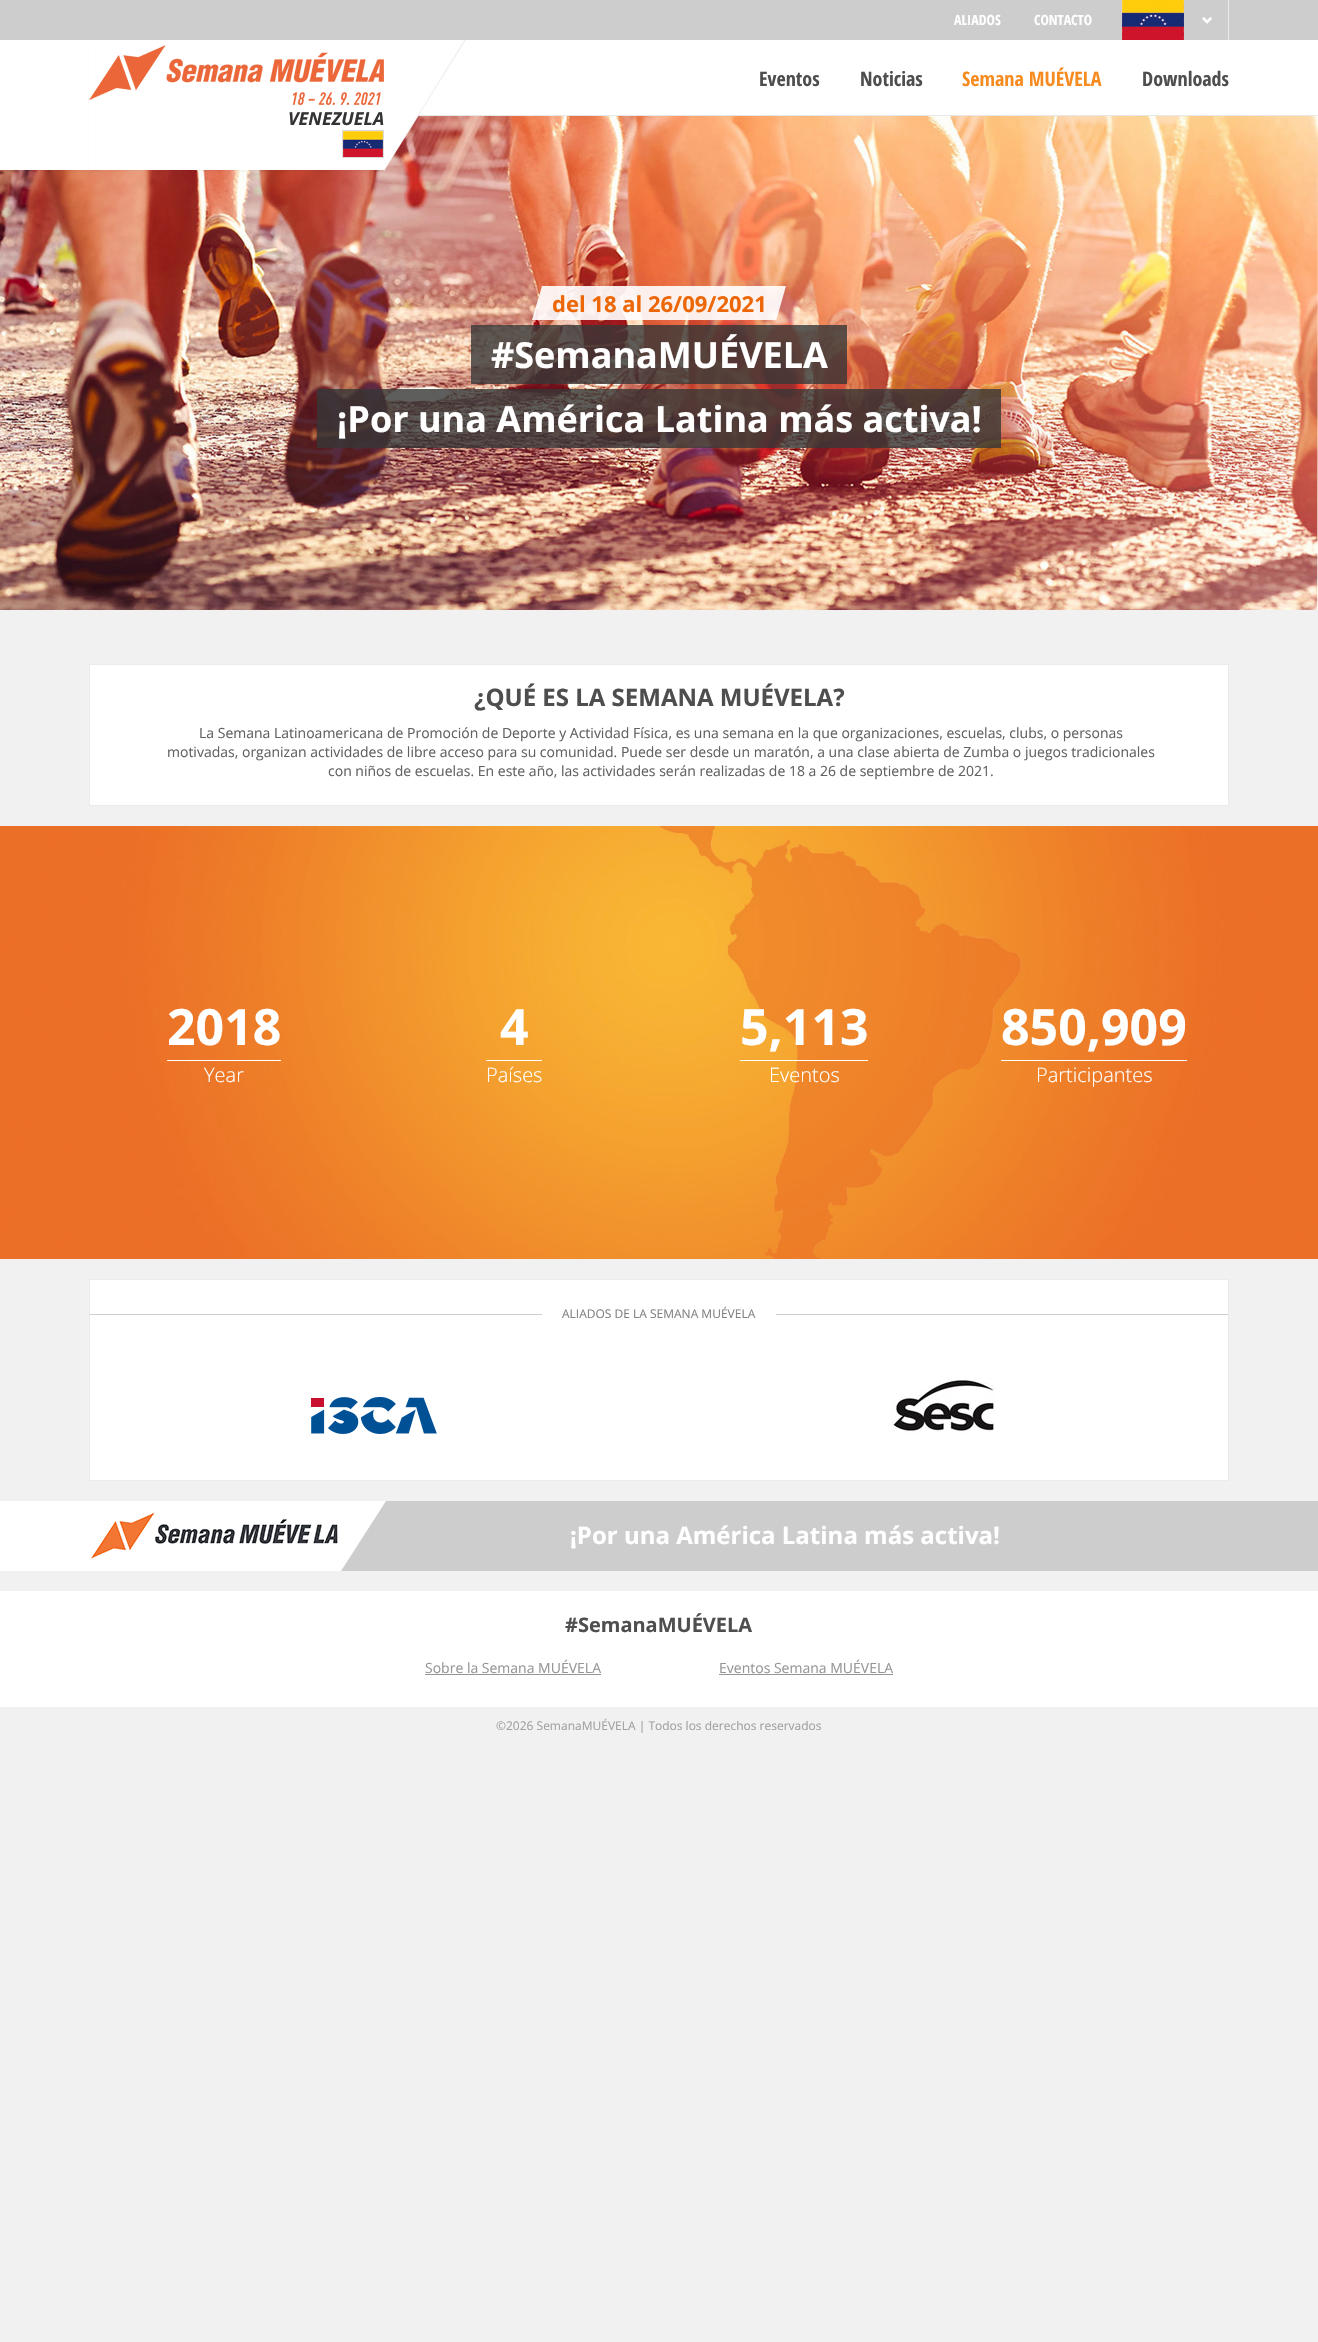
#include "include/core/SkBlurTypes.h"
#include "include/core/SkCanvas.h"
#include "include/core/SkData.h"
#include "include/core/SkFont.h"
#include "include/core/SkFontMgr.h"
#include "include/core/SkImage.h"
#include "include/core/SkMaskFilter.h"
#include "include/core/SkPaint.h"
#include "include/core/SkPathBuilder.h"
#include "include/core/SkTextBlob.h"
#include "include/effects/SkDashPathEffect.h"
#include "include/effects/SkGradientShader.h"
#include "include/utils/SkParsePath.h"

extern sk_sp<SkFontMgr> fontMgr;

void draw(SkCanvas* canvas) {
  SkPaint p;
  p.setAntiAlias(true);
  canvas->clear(SkColorSetRGB(241, 241, 241));
  p.setColor(SkColorSetRGB(205, 205, 205));
  canvas->drawRect(SkRect::MakeLTRB(0, 0, 1318, 40), p);
  p.setColor(SkColorSetARGB(26, 0, 0, 0));
  p.setMaskFilter(SkMaskFilter::MakeBlur(kNormal_SkBlurStyle, 1.5f));
  canvas->drawRect(SkRect::MakeLTRB(2, 44, 1316, 115), p);
  p.setMaskFilter(nullptr);
  canvas->drawImageRect(SkImages::DeferredFromEncodedData(SkData::MakeFromFileName("images/1.png")), SkRect::MakeLTRB(1122, 0, 1184, 40), SkSamplingOptions());
  p.setColor(SkColorSetRGB(234, 234, 234));
  canvas->drawRect(SkRect::MakeLTRB(1228, 0, 1229, 40), p);
  canvas->drawImageRect(SkImages::DeferredFromEncodedData(SkData::MakeFromFileName("images/2.png")), SkRect::MakeLTRB(1202, 17, 1212, 24), SkSamplingOptions());
  p.setColor(SK_ColorWHITE);
  canvas->drawRect(SkRect::MakeLTRB(419, 40, 1318, 115), p);
  canvas->drawImageRect(SkImages::DeferredFromEncodedData(SkData::MakeFromFileName("images/5.png")), SkRect::MakeLTRB(0, 116, 1318, 610), SkSamplingOptions());
  p.setColor(SkColorSetARGB(26, 0, 0, 0));
  p.setMaskFilter(SkMaskFilter::MakeBlur(kNormal_SkBlurStyle, 1.5f));
  canvas->drawRect(SkRect::MakeLTRB(-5, 44, 100, 170), p);
  p.setMaskFilter(nullptr);
  p.setColor(SK_ColorWHITE);
  canvas->drawRect(SkRect::MakeLTRB(0, 40, 89, 170), p);
  p.setColor(SkColorSetARGB(26, 0, 0, 0));
  p.setMaskFilter(SkMaskFilter::MakeBlur(kNormal_SkBlurStyle, 1.5f));
  canvas->drawRect(SkRect::MakeLTRB(91, 44, 382, 170), p);
  p.setMaskFilter(nullptr);
  p.setColor(SK_ColorWHITE);
  canvas->drawRect(SkRect::MakeLTRB(89, 40, 384, 170), p);
  p.setColor(SkColorSetRGB(241, 241, 241));
  canvas->drawPath(SkPathBuilder().moveTo(384, 171).lineTo(384, 40).lineTo(466, 40).close().detach(), p);
  canvas->drawImageRect(SkImages::DeferredFromEncodedData(SkData::MakeFromFileName("images/3.png")), SkRect::MakeLTRB(89, 45, 384, 105), SkSamplingOptions());
  p.setColor(SK_ColorWHITE);
  canvas->drawPath(SkPathBuilder().moveTo(384, 170).lineTo(384, 40).lineTo(464, 40).close().detach(), p);
  canvas->drawImageRect(SkImages::DeferredFromEncodedData(SkData::MakeFromFileName("images/4.png")), SkRect::MakeLTRB(343, 131, 383, 157), SkSamplingOptions());
  p.setStyle(SkPaint::kStroke_Style);
  p.setStrokeWidth(1);
  p.setColor(SkColorSetRGB(218, 218, 218));
  canvas->drawRect(SkRect::MakeLTRB(342.5f, 130.5f, 383.5f, 157.5f), p);
  p.setStyle(SkPaint::kFill_Style);
  p.setColor(SkColorSetARGB(230, 255, 255, 255));
  canvas->drawRect(SkRect::MakeLTRB(542, 286, 776, 320), p);
  canvas->drawPath(SkPathBuilder().moveTo(542, 286).lineTo(542, 320).lineTo(532, 320).close().detach(), p);
  canvas->drawPath(SkPathBuilder().moveTo(776, 321).lineTo(776, 286).lineTo(786, 286).close().detach(), p);
  p.setColor(SkColorSetARGB(204, 54, 54, 54));
  canvas->drawRect(SkRect::MakeLTRB(471, 325, 847, 384), p);
  canvas->drawRect(SkRect::MakeLTRB(317, 389, 1001, 448), p);
  p.setColor(SK_ColorWHITE);
  canvas->drawRect(SkRect::MakeLTRB(89.5f, 664.5f, 1228.5f, 805.5f), p);
  p.setStyle(SkPaint::kStroke_Style);
  p.setColor(SkColorSetRGB(236, 235, 235));
  canvas->drawRect(SkRect::MakeLTRB(89.5f, 664.5f, 1228.5f, 805.5f), p);
  canvas->drawImageRect(SkImages::DeferredFromEncodedData(SkData::MakeFromFileName("images/6.png")), SkRect::MakeLTRB(0, 826, 1318, 1259), SkSamplingOptions());
  p.setStyle(SkPaint::kFill_Style);
  p.setColor(SK_ColorWHITE);
  canvas->drawRect(SkRect::MakeLTRB(167, 1060, 281, 1061), p);
  canvas->drawRect(SkRect::MakeLTRB(486, 1060, 542, 1061), p);
  canvas->drawRect(SkRect::MakeLTRB(740, 1060, 868, 1061), p);
  canvas->drawRect(SkRect::MakeLTRB(1001, 1060, 1187, 1061), p);
  canvas->drawRect(SkRect::MakeLTRB(89.5f, 1279.5f, 1228.5f, 1480.5f), p);
  p.setStyle(SkPaint::kStroke_Style);
  p.setColor(SkColorSetRGB(236, 235, 235));
  canvas->drawRect(SkRect::MakeLTRB(89.5f, 1279.5f, 1228.5f, 1480.5f), p);
  p.setStyle(SkPaint::kFill_Style);
  p.setColor(SkColorSetRGB(206, 206, 206));
  canvas->drawRect(SkRect::MakeLTRB(90, 1314, 1228, 1315), p);
  p.setColor(SK_ColorWHITE);
  canvas->drawRect(SkRect::MakeLTRB(542, 1314, 776, 1315), p);
  canvas->drawImageRect(SkImages::DeferredFromEncodedData(SkData::MakeFromFileName("images/7.png")), SkRect::MakeLTRB(311, 1397, 437, 1434), SkSamplingOptions());
  canvas->drawImageRect(SkImages::DeferredFromEncodedData(SkData::MakeFromFileName("images/8.png")), SkRect::MakeLTRB(891, 1379, 994, 1435), SkSamplingOptions());
  p.setColor(SkColorSetRGB(205, 205, 205));
  canvas->drawRect(SkRect::MakeLTRB(341, 1501, 1318, 1571), p);
  p.setColor(SK_ColorWHITE);
  canvas->drawRect(SkRect::MakeLTRB(0, 1501, 341, 1571), p);
  canvas->drawImageRect(SkImages::DeferredFromEncodedData(SkData::MakeFromFileName("images/9.png")), SkRect::MakeLTRB(89, 1511, 338, 1559), SkSamplingOptions());
  canvas->drawPath(SkPathBuilder().moveTo(341, 1571).lineTo(341, 1501).lineTo(386, 1501).close().detach(), p);
  canvas->drawRect(SkRect::MakeLTRB(0, 1591, 1318, 1707), p);
  p.setColor(SkColorSetRGB(150, 150, 150));
  canvas->drawRect(SkRect::MakeLTRB(425, 1674, 601, 1675), p);
  canvas->drawRect(SkRect::MakeLTRB(719, 1674, 893, 1675), p);
  SkFont font1(fontMgr->matchFamilyStyle("Open Sans Condensed", SkFontStyle::Bold()), 14);
  font1.setSubpixel(true);
  p.setColor(SK_ColorWHITE);
  canvas->drawString("ALIADOS", 954, 25, font1, p);
  canvas->drawString("CONTACTO", 1034, 25, font1, p);
  SkFont font2(fontMgr->matchFamilyStyle("Open Sans Condensed", SkFontStyle::Bold()), 20);
  font2.setSubpixel(true);
  p.setColor(SkColorSetRGB(78, 78, 78));
  canvas->drawString("Eventos", 759, 86, font2, p);
  canvas->drawString("Noticias", 860, 86, font2, p);
  p.setColor(SkColorSetRGB(246, 139, 31));
  canvas->drawString("Semana MUÉVELA", 962, 86, font2, p);
  p.setColor(SkColorSetRGB(78, 78, 78));
  canvas->drawString("Downloads", 1142, 86, font2, p);
  SkFont font3(fontMgr->matchFamilyStyle("Open Sans", SkFontStyle::BoldItalic()), 18);
  font3.setSubpixel(true);
  p.setColor(SkColorSetRGB(51, 51, 51));
  canvas->drawString("VENEZUELA", 288, 125, font3, p);
  SkFont font4(fontMgr->matchFamilyStyle("Open Sans", SkFontStyle::Bold()), 22);
  font4.setSubpixel(true);
  p.setColor(SkColorSetRGB(236, 103, 7));
  canvas->drawString("del 18 al 26/09/2021", 552, 312, font4, p);
  SkFont font5(fontMgr->matchFamilyStyle("Open Sans", SkFontStyle::Bold()), 36);
  font5.setSubpixel(true);
  p.setColor(SK_ColorWHITE);
  canvas->drawString("#SemanaMUÉVELA", 491, 368, font5, p);
  canvas->drawString("¡Por una América Latina más activa!", 337, 432, font5, p);
  SkFont font6(fontMgr->matchFamilyStyle("Open Sans", SkFontStyle::Bold()), 24);
  font6.setSubpixel(true);
  p.setColor(SkColorSetRGB(78, 78, 78));
  canvas->drawString("¿QUÉ ES LA SEMANA MUÉVELA?", 474, 706, font6, p);
  SkFont font7(fontMgr->matchFamilyStyle("Open Sans", SkFontStyle::Normal()), 14);
  font7.setSubpixel(true);
  p.setColor(SkColorSetRGB(97, 97, 97));
  canvas->drawString("La Semana Latinoamericana de Promoción de Deporte y Actividad Física, es una semana en la que organizaciones, escuelas, clubs, o personas", 199, 738, font7, p);
  canvas->drawString("motivadas, organizan actividades de libre acceso para su comunidad. Puede ser desde un maratón, a una clase abierta de Zumba o juegos tradicionales", 167, 757, font7, p);
  canvas->drawString("con niños de escuelas. En este año, las actividades serán realizadas de 18 a 26 de septiembre de 2021.", 328, 776, font7, p);
  SkFont font8(fontMgr->matchFamilyStyle("Open Sans", SkFontStyle::Bold()), 50);
  font8.setSubpixel(true);
  p.setColor(SK_ColorWHITE);
  canvas->drawString("2018", 167, 1045, font8, p);
  SkFont font9(fontMgr->matchFamilyStyle("Open Sans", SkFontStyle(300, SkFontStyle::kNormal_Width, SkFontStyle::kUpright_Slant)), 20);
  font9.setSubpixel(true);
  canvas->drawString("Year", 204, 1082, font9, p);
  canvas->drawString("4", 500, 1045, font8, p);
  canvas->drawString("Países", 486, 1082, font9, p);
  canvas->drawString("5,113", 740, 1045, font8, p);
  canvas->drawString("Eventos", 769, 1082, font9, p);
  canvas->drawString("850,909", 1001, 1045, font8, p);
  canvas->drawString("Participantes", 1036, 1082, font9, p);
  SkFont font10(fontMgr->matchFamilyStyle("Open Sans", SkFontStyle::Normal()), 12);
  font10.setSubpixel(true);
  p.setColor(SkColorSetRGB(129, 129, 129));
  canvas->drawString("ALIADOS DE LA SEMANA MUÉVELA", 562, 1318, font10, p);
  p.setColor(SK_ColorWHITE);
  canvas->drawString("¡Por una América Latina más activa!", 570, 1544, font6, p);
  SkFont font11(fontMgr->matchFamilyStyle("Open Sans", SkFontStyle::Bold()), 20);
  font11.setSubpixel(true);
  p.setColor(SkColorSetRGB(78, 78, 78));
  canvas->drawString("#SemanaMUÉVELA", 565, 1632, font11, p);
  p.setColor(SkColorSetRGB(150, 150, 150));
  canvas->drawString("Sobre la Semana MUÉVELA", 425, 1673, font7, p);
  canvas->drawString("Eventos Semana MUÉVELA", 719, 1673, font7, p);
  p.setColor(SkColorSetRGB(161, 161, 161));
  canvas->drawString("©2026 SemanaMUÉVELA | Todos los derechos reservados", 496, 1730, font10, p);
}
